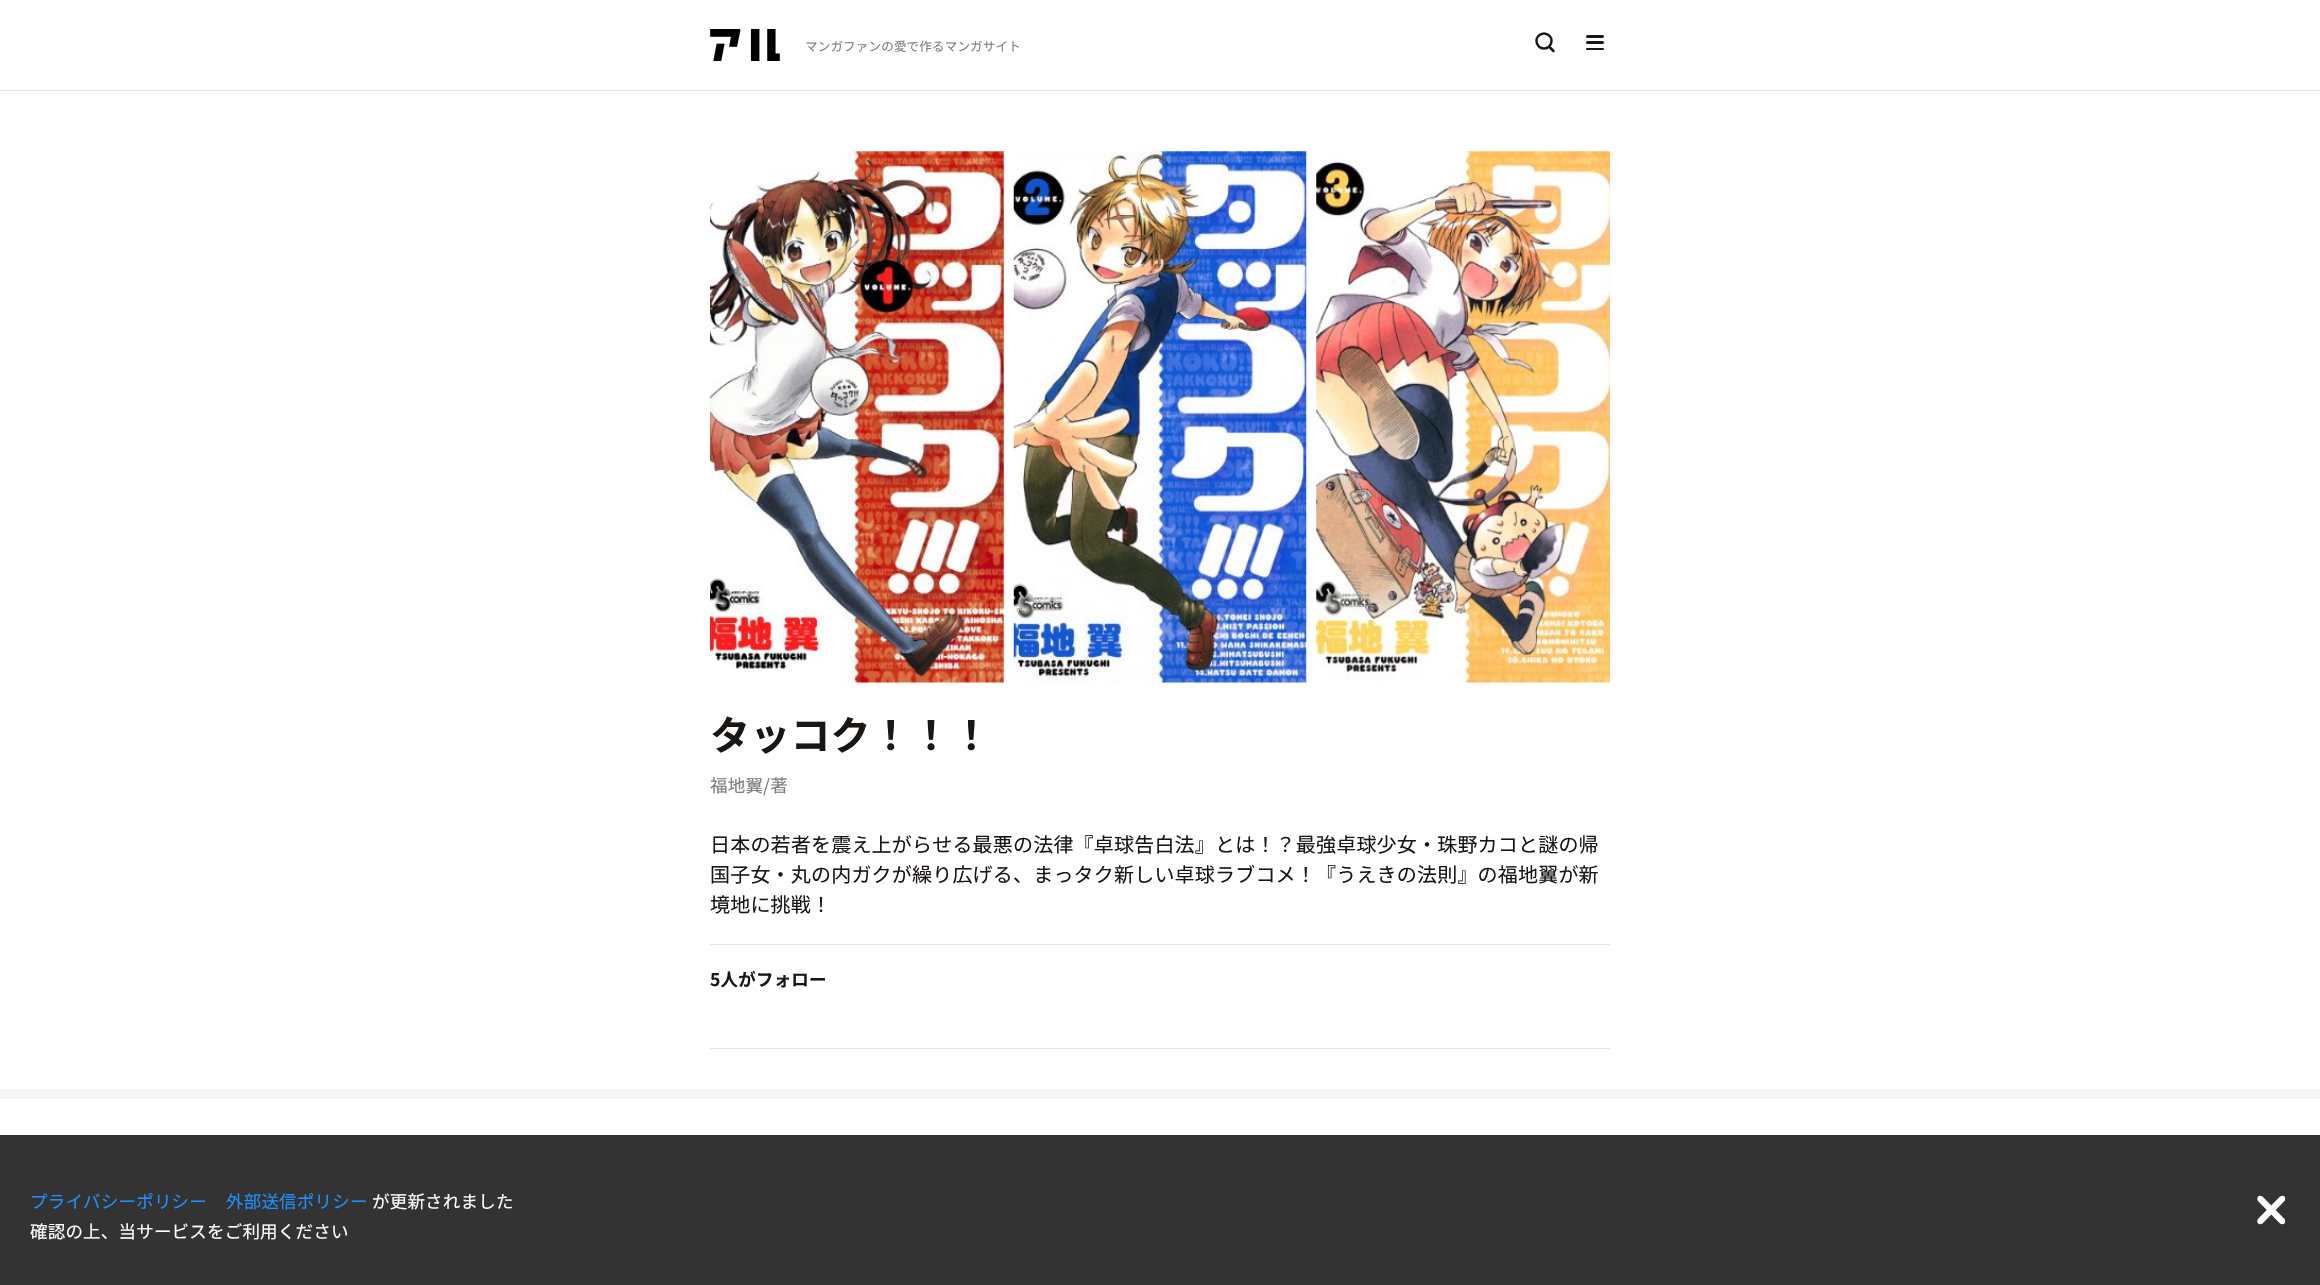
#include "include/core/SkBlurTypes.h"
#include "include/core/SkCanvas.h"
#include "include/core/SkData.h"
#include "include/core/SkFont.h"
#include "include/core/SkFontMgr.h"
#include "include/core/SkImage.h"
#include "include/core/SkMaskFilter.h"
#include "include/core/SkPaint.h"
#include "include/core/SkPathBuilder.h"
#include "include/core/SkTextBlob.h"
#include "include/effects/SkDashPathEffect.h"
#include "include/effects/SkGradientShader.h"
#include "include/utils/SkParsePath.h"

extern sk_sp<SkFontMgr> fontMgr;

void draw(SkCanvas* canvas) {
  SkPaint p;
  p.setAntiAlias(true);
  auto spacedText = [&](const char* s, float x, float y, const SkFont& font, const SkPaint& ink, float letter, float word) {
    std::vector<SkGlyphID> glyphs(font.countText(s, strlen(s), SkTextEncoding::kUTF8));
    std::vector<float> xs(glyphs.size());
    font.textToGlyphs(s, strlen(s), SkTextEncoding::kUTF8, glyphs);
    font.getXPos(glyphs, xs, x);
    float extra = 0;
    for (size_t i = 0; i < glyphs.size(); i++) {
      xs[i] += extra;
      extra += letter + word * (glyphs[i] == font.unicharToGlyph(' '));
    }
    canvas->drawTextBlob(SkTextBlob::MakeFromPosHGlyphs(glyphs, xs, y, font), 0, 0, ink);
  };
  canvas->clear(SK_ColorWHITE);
  p.setColor(SkColorSetRGB(230, 228, 225));
  canvas->drawRect(SkRect::MakeLTRB(0, 90, 2320, 91), p);
  canvas->drawImageRect(SkImages::DeferredFromEncodedData(SkData::MakeFromFileName("images/1.png")), SkRect::MakeLTRB(710, 29, 780, 61), SkSamplingOptions());
  p.setStyle(SkPaint::kStroke_Style);
  p.setStrokeWidth(2.5f);
  p.setColor(SkColorSetRGB(26, 24, 20));
  canvas->drawCircle(1544, 41, 7.5f, p);
  p.setStrokeCap(SkPaint::kRound_Cap);
  p.setStrokeJoin(SkPaint::kRound_Join);
  canvas->drawPath(SkPathBuilder().moveTo(1550, 47.5f).lineTo(1553.5f, 51).detach(), p);
  p.setStyle(SkPaint::kFill_Style);
  canvas->drawRoundRect(SkRect::MakeLTRB(1586, 35, 1604, 38), 1.5f, 1.5f, p);
  canvas->drawRoundRect(SkRect::MakeLTRB(1586, 41, 1604, 44), 1.5f, 1.5f, p);
  canvas->drawRoundRect(SkRect::MakeLTRB(1586, 48, 1604, 50), 1, 1, p);
  canvas->drawImageRect(SkImages::DeferredFromEncodedData(SkData::MakeFromFileName("images/2.png")), SkRect::MakeLTRB(710, 151, 1004, 683), SkSamplingOptions());
  canvas->drawImageRect(SkImages::DeferredFromEncodedData(SkData::MakeFromFileName("images/3.png")), SkRect::MakeLTRB(1013, 151, 1307, 683), SkSamplingOptions());
  canvas->drawImageRect(SkImages::DeferredFromEncodedData(SkData::MakeFromFileName("images/4.png")), SkRect::MakeLTRB(1316, 151, 1610, 683), SkSamplingOptions());
  p.setColor(SkColorSetRGB(230, 228, 225));
  canvas->drawRect(SkRect::MakeLTRB(710, 944, 1610, 945), p);
  canvas->drawRect(SkRect::MakeLTRB(710, 1048, 1610, 1049), p);
  p.setColor(SkColorSetRGB(245, 244, 242));
  canvas->drawRect(SkRect::MakeLTRB(0, 1089, 2320, 1099), p);
  p.setColor(SkColorSetRGB(51, 51, 51));
  canvas->drawRect(SkRect::MakeLTRB(0, 1135, 2320, 1285), p);
  p.setColor(SK_ColorWHITE);
  canvas->drawPath(SkPathBuilder().moveTo(2284.5f, 1196.5f).cubicTo(2285.5f, 1198, 2285.5f, 1200, 2284.5f, 1201).lineTo(2262.5f, 1223.5f).cubicTo(2261, 1224.5f, 2259, 1224.5f, 2258, 1223.5f).cubicTo(2257, 1222, 2257, 1220, 2258, 1219).lineTo(2280, 1196.5f).cubicTo(2281.5f, 1195.5f, 2283.5f, 1195.5f, 2284.5f, 1196.5f).close().detach(), p);
  canvas->drawPath(SkPathBuilder().moveTo(2258, 1196.5f).cubicTo(2259, 1195.5f, 2261, 1195.5f, 2262.5f, 1196.5f).lineTo(2284.5f, 1219).cubicTo(2285.5f, 1220, 2285.5f, 1222, 2284.5f, 1223.5f).cubicTo(2283.5f, 1224.5f, 2281.5f, 1224.5f, 2280, 1223.5f).lineTo(2258, 1201).cubicTo(2257, 1200, 2257, 1198, 2258, 1196.5f).close().detach(), p);
  SkFont font1(fontMgr->matchFamilyStyle("Noto Sans JP", SkFontStyle::Normal()), 12.5f);
  font1.setSubpixel(true);
  p.setColor(SkColorSetRGB(128, 125, 121));
  spacedText("マンガファンの愛で作るマンガサイト", 805, 51, font1, p, 0.2f, 0);
  SkFont font2(fontMgr->matchFamilyStyle("Noto Sans JP", SkFontStyle::Bold()), 40);
  font2.setSubpixel(true);
  p.setColor(SkColorSetRGB(26, 22, 20));
  spacedText("タッコク！！！", 710, 750, font2, p, 0.2f, 0);
  SkFont font3(fontMgr->matchFamilyStyle("Noto Sans JP", SkFontStyle::Normal()), 17.5f);
  font3.setSubpixel(true);
  p.setColor(SkColorSetRGB(128, 125, 121));
  spacedText("福地翼/著", 710, 792, font3, p, 0.2f, 0);
  SkFont font4(fontMgr->matchFamilyStyle("Noto Sans JP", SkFontStyle::Normal()), 20);
  font4.setSubpixel(true);
  p.setColor(SkColorSetRGB(26, 22, 20));
  spacedText("日本の若者を震え上がらせる最悪の法律『卓球告白法』とは！？最強卓球少女・珠野カコと謎の帰", 710, 852, font4, p, 0.2f, 0);
  spacedText("国子女・丸の内ガクが繰り広げる、まっタク新しい卓球ラブコメ！『うえきの法則』の福地翼が新", 710, 882, font4, p, 0.2f, 0);
  spacedText("境地に挑戦！", 710, 912, font4, p, 0.2f, 0);
  SkFont font5(fontMgr->matchFamilyStyle("Noto Sans JP", SkFontStyle::Bold()), 17.5f);
  font5.setSubpixel(true);
  spacedText("5人がフォロー", 710, 986, font5, p, 0.2f, 0);
  p.setColor(SkColorSetRGB(30, 144, 255));
  spacedText("プライバシーポリシー", 30, 1208, font3, p, 0.2f, 0);
  spacedText("外部送信ポリシー", 226, 1208, font3, p, 0.2f, 0);
  p.setColor(SK_ColorWHITE);
  spacedText("が更新されました", 372, 1208, font3, p, 0.2f, 0);
  spacedText("確認の上、当サービスをご利用ください", 30, 1238, font3, p, 0.2f, 0);
}
